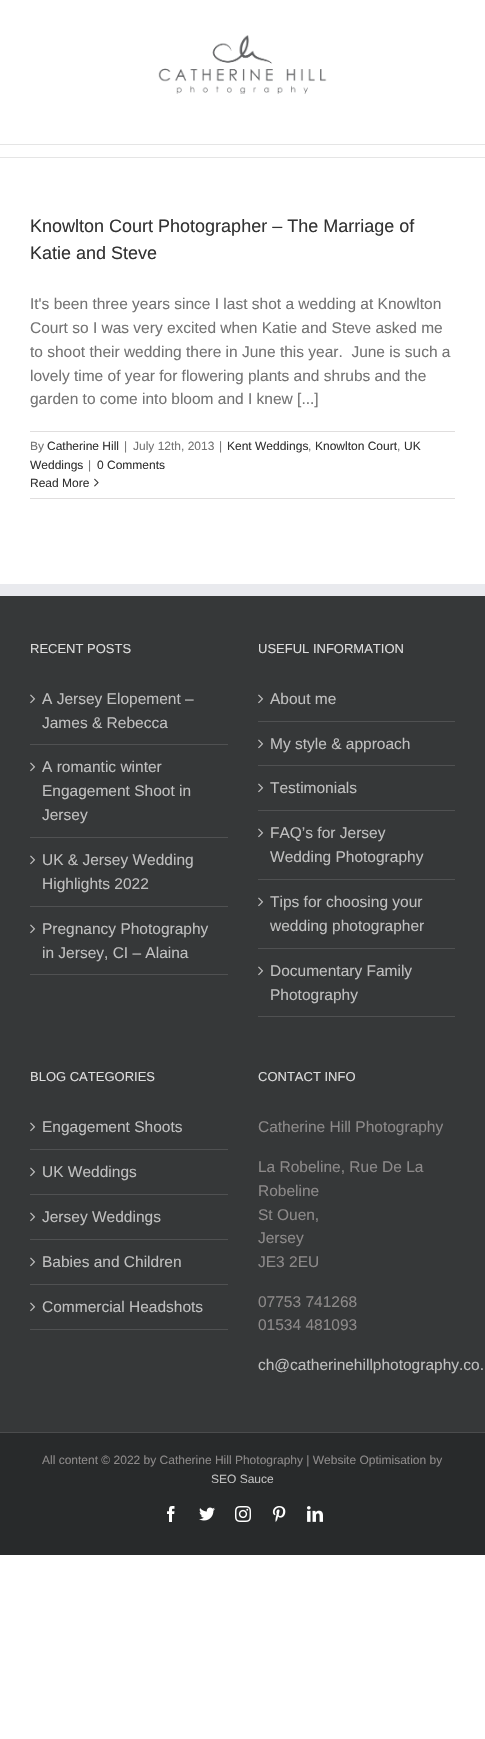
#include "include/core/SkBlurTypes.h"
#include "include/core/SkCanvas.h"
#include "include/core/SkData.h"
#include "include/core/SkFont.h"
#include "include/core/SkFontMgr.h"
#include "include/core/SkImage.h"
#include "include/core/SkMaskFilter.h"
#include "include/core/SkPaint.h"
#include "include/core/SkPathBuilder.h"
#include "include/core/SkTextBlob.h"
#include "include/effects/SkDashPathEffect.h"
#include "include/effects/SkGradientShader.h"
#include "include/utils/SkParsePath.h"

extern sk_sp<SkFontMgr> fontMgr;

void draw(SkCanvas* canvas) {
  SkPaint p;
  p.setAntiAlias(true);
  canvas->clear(SK_ColorWHITE);
  p.setColor(SkColorSetRGB(229, 229, 229));
  canvas->drawRect(SkRect::MakeLTRB(0, 144, 485, 145), p);
  canvas->drawImageRect(SkImages::DeferredFromEncodedData(SkData::MakeFromFileName("images/1.png")), SkRect::MakeLTRB(158, 35, 327, 94), SkSamplingOptions());
  canvas->drawRect(SkRect::MakeLTRB(0, 157, 485, 158), p);
  p.setColor(SkColorSetRGB(224, 222, 222));
  canvas->drawRect(SkRect::MakeLTRB(30, 431, 455, 432), p);
  canvas->drawRect(SkRect::MakeLTRB(30, 498, 455, 499), p);
  canvas->drawImageRect(SkImages::DeferredFromEncodedData(SkData::MakeFromFileName("images/2.png")), SkRect::MakeLTRB(94, 478, 99, 487), SkSamplingOptions());
  p.setColor(SkColorSetRGB(54, 56, 57));
  canvas->drawRect(SkRect::MakeLTRB(0, 596, 485, 1432), p);
  p.setColor(SkColorSetRGB(233, 234, 238));
  canvas->drawRect(SkRect::MakeLTRB(0, 584, 485, 596), p);
  p.setColor(SkColorSetRGB(80, 81, 82));
  canvas->drawRect(SkRect::MakeLTRB(30, 744, 228, 745), p);
  canvas->drawImageRect(SkImages::DeferredFromEncodedData(SkData::MakeFromFileName("images/3.png")), SkRect::MakeLTRB(30, 694, 36, 704), SkSamplingOptions());
  canvas->drawRect(SkRect::MakeLTRB(30, 837, 228, 838), p);
  canvas->drawImageRect(SkImages::DeferredFromEncodedData(SkData::MakeFromFileName("images/3.png")), SkRect::MakeLTRB(30, 762, 36, 772), SkSamplingOptions());
  canvas->drawRect(SkRect::MakeLTRB(30, 906, 228, 907), p);
  canvas->drawImageRect(SkImages::DeferredFromEncodedData(SkData::MakeFromFileName("images/3.png")), SkRect::MakeLTRB(30, 855, 36, 865), SkSamplingOptions());
  canvas->drawRect(SkRect::MakeLTRB(30, 974, 228, 975), p);
  canvas->drawImageRect(SkImages::DeferredFromEncodedData(SkData::MakeFromFileName("images/3.png")), SkRect::MakeLTRB(30, 924, 36, 934), SkSamplingOptions());
  canvas->drawRect(SkRect::MakeLTRB(258, 721, 455, 722), p);
  canvas->drawImageRect(SkImages::DeferredFromEncodedData(SkData::MakeFromFileName("images/3.png")), SkRect::MakeLTRB(258, 694, 264, 704), SkSamplingOptions());
  canvas->drawRect(SkRect::MakeLTRB(258, 765, 455, 766), p);
  canvas->drawImageRect(SkImages::DeferredFromEncodedData(SkData::MakeFromFileName("images/3.png")), SkRect::MakeLTRB(258, 739, 264, 749), SkSamplingOptions());
  canvas->drawRect(SkRect::MakeLTRB(258, 810, 455, 811), p);
  canvas->drawImageRect(SkImages::DeferredFromEncodedData(SkData::MakeFromFileName("images/3.png")), SkRect::MakeLTRB(258, 783, 264, 793), SkSamplingOptions());
  canvas->drawRect(SkRect::MakeLTRB(258, 879, 455, 880), p);
  canvas->drawImageRect(SkImages::DeferredFromEncodedData(SkData::MakeFromFileName("images/3.png")), SkRect::MakeLTRB(258, 828, 264, 838), SkSamplingOptions());
  canvas->drawRect(SkRect::MakeLTRB(258, 948, 455, 949), p);
  canvas->drawImageRect(SkImages::DeferredFromEncodedData(SkData::MakeFromFileName("images/3.png")), SkRect::MakeLTRB(258, 897, 264, 907), SkSamplingOptions());
  canvas->drawRect(SkRect::MakeLTRB(258, 1016, 455, 1017), p);
  canvas->drawImageRect(SkImages::DeferredFromEncodedData(SkData::MakeFromFileName("images/3.png")), SkRect::MakeLTRB(258, 966, 264, 976), SkSamplingOptions());
  canvas->drawRect(SkRect::MakeLTRB(30, 1149, 228, 1150), p);
  canvas->drawImageRect(SkImages::DeferredFromEncodedData(SkData::MakeFromFileName("images/3.png")), SkRect::MakeLTRB(30, 1122, 36, 1132), SkSamplingOptions());
  canvas->drawRect(SkRect::MakeLTRB(30, 1194, 228, 1195), p);
  canvas->drawImageRect(SkImages::DeferredFromEncodedData(SkData::MakeFromFileName("images/3.png")), SkRect::MakeLTRB(30, 1167, 36, 1177), SkSamplingOptions());
  canvas->drawRect(SkRect::MakeLTRB(30, 1239, 228, 1240), p);
  canvas->drawImageRect(SkImages::DeferredFromEncodedData(SkData::MakeFromFileName("images/3.png")), SkRect::MakeLTRB(30, 1212, 36, 1222), SkSamplingOptions());
  canvas->drawRect(SkRect::MakeLTRB(30, 1284, 228, 1285), p);
  canvas->drawImageRect(SkImages::DeferredFromEncodedData(SkData::MakeFromFileName("images/3.png")), SkRect::MakeLTRB(30, 1257, 36, 1267), SkSamplingOptions());
  canvas->drawRect(SkRect::MakeLTRB(30, 1329, 228, 1330), p);
  canvas->drawImageRect(SkImages::DeferredFromEncodedData(SkData::MakeFromFileName("images/3.png")), SkRect::MakeLTRB(30, 1302, 36, 1312), SkSamplingOptions());
  p.setColor(SkColorSetRGB(40, 42, 43));
  canvas->drawRect(SkRect::MakeLTRB(0, 1433, 485, 1555), p);
  p.setColor(SkColorSetRGB(75, 76, 77));
  canvas->drawRect(SkRect::MakeLTRB(0, 1432, 485, 1433), p);
  canvas->drawImageRect(SkImages::DeferredFromEncodedData(SkData::MakeFromFileName("images/4.png")), SkRect::MakeLTRB(167, 1506, 175, 1522), SkSamplingOptions());
  canvas->drawImageRect(SkImages::DeferredFromEncodedData(SkData::MakeFromFileName("images/5.png")), SkRect::MakeLTRB(199, 1507, 215, 1521), SkSamplingOptions());
  canvas->drawImageRect(SkImages::DeferredFromEncodedData(SkData::MakeFromFileName("images/6.png")), SkRect::MakeLTRB(235, 1506, 251, 1522), SkSamplingOptions());
  canvas->drawImageRect(SkImages::DeferredFromEncodedData(SkData::MakeFromFileName("images/7.png")), SkRect::MakeLTRB(272, 1506, 286, 1522), SkSamplingOptions());
  canvas->drawImageRect(SkImages::DeferredFromEncodedData(SkData::MakeFromFileName("images/8.png")), SkRect::MakeLTRB(307, 1506, 323, 1522), SkSamplingOptions());
  SkFont font1(fontMgr->matchFamilyStyle("Liberation Sans", SkFontStyle::Normal()), 18);
  font1.setSubpixel(true);
  p.setColor(SkColorSetRGB(51, 51, 51));
  canvas->drawString("Knowlton Court Photographer – The Marriage of", 30, 232, font1, p);
  canvas->drawString("Katie and Steve", 30, 259, font1, p);
  SkFont font2(fontMgr->matchFamilyStyle("Liberation Sans", SkFontStyle::Normal()), 15.5f);
  font2.setSubpixel(true);
  p.setColor(SkColorSetRGB(116, 116, 116));
  canvas->drawString("It's been three years since I last shot a wedding at Knowlton", 30, 309, font2, p);
  canvas->drawString("Court so I was very excited when Katie and Steve asked me", 30, 333, font2, p);
  canvas->drawString("to shoot their wedding there in June this year.  June is such a", 30, 357, font2, p);
  canvas->drawString("lovely time of year for flowering plants and shrubs and the", 30, 381, font2, p);
  canvas->drawString("garden to come into bloom and I knew [...]", 30, 404, font2, p);
  SkFont font3(fontMgr->matchFamilyStyle("Liberation Sans", SkFontStyle::Normal()), 12);
  font3.setSubpixel(true);
  canvas->drawString("By", 30, 450, font3, p);
  p.setColor(SkColorSetRGB(51, 51, 51));
  canvas->drawString("Catherine Hill", 47, 450, font3, p);
  p.setColor(SkColorSetRGB(116, 116, 116));
  canvas->drawString("|", 124, 450, font3, p);
  canvas->drawString("July 12th, 2013", 133, 450, font3, p);
  canvas->drawString("|", 219, 450, font3, p);
  p.setColor(SkColorSetRGB(51, 51, 51));
  canvas->drawString("Kent Weddings", 227, 450, font3, p);
  p.setColor(SkColorSetRGB(116, 116, 116));
  canvas->drawString(",", 308, 450, font3, p);
  p.setColor(SkColorSetRGB(51, 51, 51));
  canvas->drawString("Knowlton Court", 315, 450, font3, p);
  p.setColor(SkColorSetRGB(116, 116, 116));
  canvas->drawString(",", 397, 450, font3, p);
  p.setColor(SkColorSetRGB(51, 51, 51));
  canvas->drawString("UK", 404, 450, font3, p);
  canvas->drawString("Weddings", 30, 469, font3, p);
  p.setColor(SkColorSetRGB(116, 116, 116));
  canvas->drawString("|", 88, 469, font3, p);
  p.setColor(SkColorSetRGB(51, 51, 51));
  canvas->drawString("0 Comments", 97, 469, font3, p);
  canvas->drawString("Read More", 30, 487, font3, p);
  SkFont font4(fontMgr->matchFamilyStyle("Liberation Sans", SkFontStyle::Normal()), 13);
  font4.setSubpixel(true);
  p.setColor(SkColorSetRGB(221, 221, 221));
  canvas->drawString("RECENT POSTS", 30, 653, font4, p);
  p.setColor(SkColorSetRGB(191, 191, 191));
  canvas->drawString("A Jersey Elopement –", 42, 704, font2, p);
  canvas->drawString("James & Rebecca", 42, 728, font2, p);
  canvas->drawString("A romantic winter", 42, 772, font2, p);
  canvas->drawString("Engagement Shoot in", 42, 796, font2, p);
  canvas->drawString("Jersey", 42, 820, font2, p);
  canvas->drawString("UK & Jersey Wedding", 42, 865, font2, p);
  canvas->drawString("Highlights 2022", 42, 889, font2, p);
  canvas->drawString("Pregnancy Photography", 42, 934, font2, p);
  canvas->drawString("in Jersey, CI – Alaina", 42, 958, font2, p);
  p.setColor(SkColorSetRGB(221, 221, 221));
  canvas->drawString("USEFUL INFORMATION", 258, 653, font4, p);
  p.setColor(SkColorSetRGB(191, 191, 191));
  canvas->drawString("About me", 270, 704, font2, p);
  canvas->drawString("My style & approach", 270, 749, font2, p);
  canvas->drawString("Testimonials", 270, 793, font2, p);
  canvas->drawString("FAQ’s for Jersey", 270, 838, font2, p);
  canvas->drawString("Wedding Photography", 270, 862, font2, p);
  canvas->drawString("Tips for choosing your", 270, 907, font2, p);
  canvas->drawString("wedding photographer", 270, 931, font2, p);
  canvas->drawString("Documentary Family", 270, 976, font2, p);
  canvas->drawString("Photography", 270, 1000, font2, p);
  p.setColor(SkColorSetRGB(221, 221, 221));
  canvas->drawString("BLOG CATEGORIES", 30, 1081, font4, p);
  p.setColor(SkColorSetRGB(191, 191, 191));
  canvas->drawString("Engagement Shoots", 42, 1132, font2, p);
  canvas->drawString("UK Weddings", 42, 1177, font2, p);
  canvas->drawString("Jersey Weddings", 42, 1222, font2, p);
  canvas->drawString("Babies and Children", 42, 1267, font2, p);
  canvas->drawString("Commercial Headshots", 42, 1312, font2, p);
  p.setColor(SkColorSetRGB(221, 221, 221));
  canvas->drawString("CONTACT INFO", 258, 1081, font4, p);
  p.setColor(SkColorSetRGB(140, 137, 137));
  canvas->drawString("Catherine Hill Photography", 258, 1132, font2, p);
  canvas->drawString("La Robeline, Rue De La", 258, 1172, font2, p);
  canvas->drawString("Robeline", 258, 1196, font2, p);
  canvas->drawString("St Ouen,", 258, 1220, font2, p);
  canvas->drawString("Jersey", 258, 1243, font2, p);
  canvas->drawString("JE3 2EU", 258, 1267, font2, p);
  canvas->drawString("07753 741268", 258, 1307, font2, p);
  canvas->drawString("01534 481093", 258, 1330, font2, p);
  p.setColor(SkColorSetRGB(191, 191, 191));
  canvas->drawString("ch@catherinehillphotography.co.", 258, 1370, font2, p);
  p.setColor(SkColorSetRGB(140, 137, 137));
  canvas->drawString("All content © 2022 by Catherine Hill Photography | Website Optimisation by", 42, 1464, font3, p);
  p.setColor(SkColorSetRGB(191, 191, 191));
  canvas->drawString("SEO Sauce", 211, 1483, font3, p);
}
